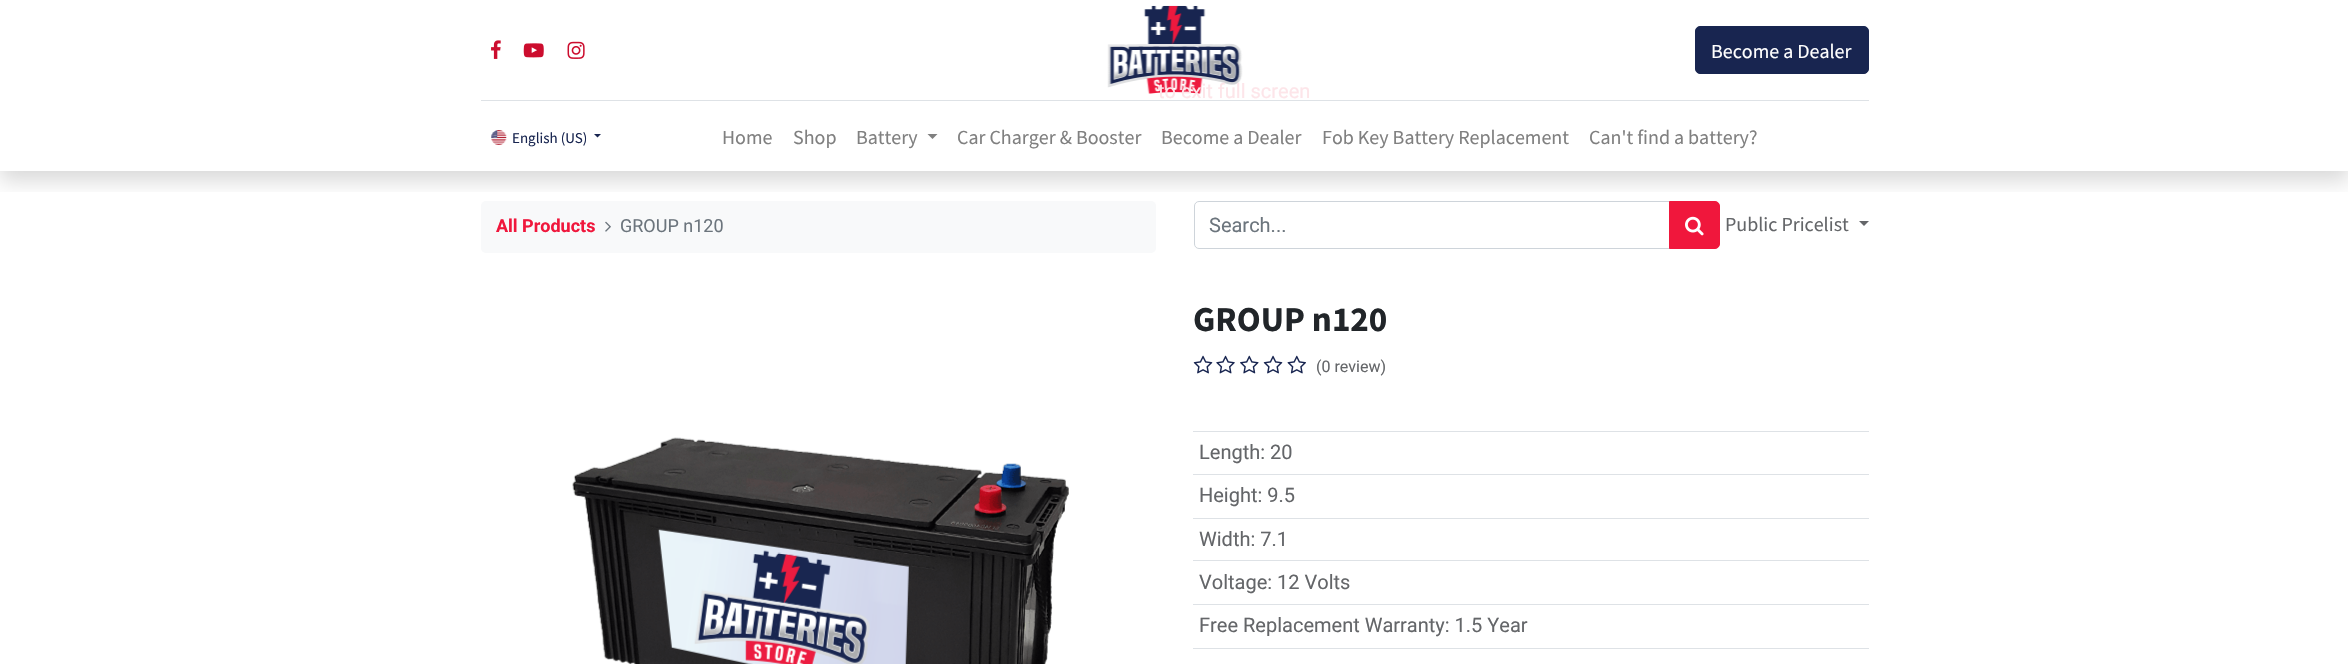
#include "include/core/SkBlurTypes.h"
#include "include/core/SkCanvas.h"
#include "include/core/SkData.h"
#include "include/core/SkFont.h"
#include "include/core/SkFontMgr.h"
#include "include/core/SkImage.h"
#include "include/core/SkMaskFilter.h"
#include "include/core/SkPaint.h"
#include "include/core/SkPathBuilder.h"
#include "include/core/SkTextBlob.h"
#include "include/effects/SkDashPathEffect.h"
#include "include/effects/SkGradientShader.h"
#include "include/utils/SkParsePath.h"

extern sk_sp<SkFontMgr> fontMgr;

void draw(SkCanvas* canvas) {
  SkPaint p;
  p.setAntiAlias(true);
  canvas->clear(SK_ColorWHITE);
  p.setColor(SkColorSetRGB(248, 249, 250));
  canvas->drawRoundRect(SkRect::MakeLTRB(481, 201, 1156, 253), 5, 5, p);
  p.setStyle(SkPaint::kStroke_Style);
  p.setStrokeWidth(1);
  p.setColor(SkColorSetRGB(206, 212, 218));
  canvas->drawPath(SkPathBuilder().moveTo(1199, 201.5f).lineTo(1669.5f, 201.5f).lineTo(1669.5f, 248.5f).lineTo(1199, 248.5f).cubicTo(1196.5f, 248.5f, 1194.5f, 246.5f, 1194.5f, 244).lineTo(1194.5f, 206).cubicTo(1194.5f, 203.5f, 1196.5f, 201.5f, 1199, 201.5f).close().detach(), p);
  p.setStyle(SkPaint::kFill_Style);
  p.setColor(SkColorSetRGB(240, 23, 60));
  canvas->drawPath(SkPathBuilder().moveTo(1669.5f, 201.5f).lineTo(1715, 201.5f).cubicTo(1717.5f, 201.5f, 1719.5f, 203.5f, 1719.5f, 206).lineTo(1719.5f, 244).cubicTo(1719.5f, 246.5f, 1717.5f, 248.5f, 1715, 248.5f).lineTo(1669.5f, 248.5f).close().detach(), p);
  p.setStyle(SkPaint::kStroke_Style);
  canvas->drawPath(SkPathBuilder().moveTo(1669.5f, 201.5f).lineTo(1715, 201.5f).cubicTo(1717.5f, 201.5f, 1719.5f, 203.5f, 1719.5f, 206).lineTo(1719.5f, 244).cubicTo(1719.5f, 246.5f, 1717.5f, 248.5f, 1715, 248.5f).lineTo(1669.5f, 248.5f).close().detach(), p);
  canvas->save();
  canvas->clipRect(SkRect::MakeLTRB(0, 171, 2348, 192));
  p.setStyle(SkPaint::kFill_Style);
  p.setColor(SkColorSetARGB(38, 0, 0, 0));
  p.setMaskFilter(SkMaskFilter::MakeBlur(kNormal_SkBlurStyle, 10));
  canvas->drawRect(SkRect::MakeLTRB(0, 10, 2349, 181), p);
  p.setMaskFilter(nullptr);
  canvas->restore();
  canvas->drawImageRect(SkImages::DeferredFromEncodedData(SkData::MakeFromFileName("images/1.png")), SkRect::MakeLTRB(491, 40, 501, 59), SkSamplingOptions());
  canvas->drawImageRect(SkImages::DeferredFromEncodedData(SkData::MakeFromFileName("images/2.png")), SkRect::MakeLTRB(523, 43, 544, 58), SkSamplingOptions());
  canvas->drawImageRect(SkImages::DeferredFromEncodedData(SkData::MakeFromFileName("images/3.png")), SkRect::MakeLTRB(567, 41, 585, 59), SkSamplingOptions());
  canvas->drawImageRect(SkImages::DeferredFromEncodedData(SkData::MakeFromFileName("images/4.png")), SkRect::MakeLTRB(1107, 5, 1243, 94), SkSamplingOptions());
  p.setColor(SkColorSetRGB(24, 37, 80));
  canvas->drawRoundRect(SkRect::MakeLTRB(1695.5f, 26.5f, 1868.5f, 73.5f), 4.5f, 4.5f, p);
  p.setStyle(SkPaint::kStroke_Style);
  canvas->drawRoundRect(SkRect::MakeLTRB(1695.5f, 26.5f, 1868.5f, 73.5f), 4.5f, 4.5f, p);
  p.setStyle(SkPaint::kFill_Style);
  p.setColor(SkColorSetRGB(222, 226, 230));
  canvas->drawRect(SkRect::MakeLTRB(481, 100, 1869, 101), p);
  canvas->drawImageRect(SkImages::DeferredFromEncodedData(SkData::MakeFromFileName("images/5.png")), SkRect::MakeLTRB(491, 130, 507, 145), SkSamplingOptions());
  p.setColor(SkColorSetRGB(24, 37, 80));
  canvas->drawPath(SkPathBuilder().moveTo(594, 134).lineTo(601, 134).lineTo(597.5f, 137.5f).close().detach(), p);
  p.setColor(SkColorSetRGB(128, 128, 128));
  canvas->drawPath(SkPathBuilder().moveTo(927.5f, 134).lineTo(937.5f, 134).lineTo(932.5f, 139).close().detach(), p);
  canvas->drawImageRect(SkImages::DeferredFromEncodedData(SkData::MakeFromFileName("images/6.png")), SkRect::MakeLTRB(605, 221, 611, 232), SkSamplingOptions());
  canvas->drawImageRect(SkImages::DeferredFromEncodedData(SkData::MakeFromFileName("images/7.png")), SkRect::MakeLTRB(1685, 216, 1704, 236), SkSamplingOptions());
  p.setColor(SkColorSetRGB(100, 102, 105));
  canvas->drawPath(SkPathBuilder().moveTo(1859, 221).lineTo(1869, 221).lineTo(1864, 226).close().detach(), p);
  canvas->drawImageRect(SkImages::DeferredFromEncodedData(SkData::MakeFromFileName("images/8.png")), SkRect::MakeLTRB(572, 437, 1069, 664), SkSamplingOptions());
  canvas->drawImageRect(SkImages::DeferredFromEncodedData(SkData::MakeFromFileName("images/9.png")), SkRect::MakeLTRB(1193, 355, 1213, 374), SkSamplingOptions());
  canvas->drawImageRect(SkImages::DeferredFromEncodedData(SkData::MakeFromFileName("images/10.png")), SkRect::MakeLTRB(1216, 355, 1235, 374), SkSamplingOptions());
  canvas->drawImageRect(SkImages::DeferredFromEncodedData(SkData::MakeFromFileName("images/11.png")), SkRect::MakeLTRB(1240, 355, 1259, 374), SkSamplingOptions());
  canvas->drawImageRect(SkImages::DeferredFromEncodedData(SkData::MakeFromFileName("images/9.png")), SkRect::MakeLTRB(1263, 355, 1283, 374), SkSamplingOptions());
  canvas->drawImageRect(SkImages::DeferredFromEncodedData(SkData::MakeFromFileName("images/12.png")), SkRect::MakeLTRB(1287, 355, 1306, 374), SkSamplingOptions());
  p.setColor(SkColorSetRGB(222, 226, 230));
  canvas->drawRect(SkRect::MakeLTRB(1193, 431, 1869, 432), p);
  canvas->drawRect(SkRect::MakeLTRB(1193, 474, 1869, 475), p);
  canvas->drawRect(SkRect::MakeLTRB(1193, 518, 1869, 519), p);
  canvas->drawRect(SkRect::MakeLTRB(1193, 560, 1869, 561), p);
  canvas->drawRect(SkRect::MakeLTRB(1193, 604, 1869, 605), p);
  canvas->drawRect(SkRect::MakeLTRB(1193, 648, 1869, 649), p);
  SkFont font1(fontMgr->matchFamilyStyle("Source Sans Pro", SkFontStyle::Normal()), 20);
  font1.setSubpixel(true);
  p.setColor(SK_ColorWHITE);
  canvas->drawString("Become a Dealer", 1711, 58, font1, p);
  SkFont font2(fontMgr->matchFamilyStyle("Source Sans Pro", SkFontStyle::Normal()), 15);
  font2.setSubpixel(true);
  p.setColor(SkColorSetRGB(24, 37, 80));
  canvas->drawString("English (US)", 512, 143, font2, p);
  p.setColor(SkColorSetRGB(128, 128, 128));
  canvas->drawString("Home", 722, 144, font1, p);
  canvas->drawString("Shop", 793, 144, font1, p);
  canvas->drawString("Battery", 856, 144, font1, p);
  canvas->drawString("Car Charger & Booster", 957, 144, font1, p);
  canvas->drawString("Become a Dealer", 1161, 144, font1, p);
  canvas->drawString("Fob Key Battery Replacement", 1322, 144, font1, p);
  canvas->drawString("Can't find a battery?", 1589, 144, font1, p);
  SkFont font3(fontMgr->matchFamilyStyle("Roboto", SkFontStyle::Bold()), 18);
  font3.setSubpixel(true);
  p.setColor(SkColorSetRGB(240, 23, 60));
  canvas->drawString("All Products", 496, 232, font3, p);
  SkFont font4(fontMgr->matchFamilyStyle("Roboto", SkFontStyle::Normal()), 18);
  font4.setSubpixel(true);
  p.setColor(SkColorSetRGB(108, 117, 125));
  canvas->drawString("GROUP n120", 620, 232, font4, p);
  SkFont font5(fontMgr->matchFamilyStyle("Roboto", SkFontStyle::Normal()), 20);
  font5.setSubpixel(true);
  canvas->drawString("Search...", 1209, 232, font5, p);
  p.setColor(SkColorSetRGB(100, 102, 105));
  canvas->drawString("Public Pricelist", 1725, 231, font1, p);
  SkFont font6(fontMgr->matchFamilyStyle("Source Sans Pro", SkFontStyle::Bold()), 35);
  font6.setSubpixel(true);
  p.setColor(SkColorSetRGB(33, 37, 41));
  canvas->drawString("GROUP n120", 1193, 331, font6, p);
  SkFont font7(fontMgr->matchFamilyStyle("Roboto", SkFontStyle::Normal()), 16);
  font7.setSubpixel(true);
  p.setColor(SkColorSetRGB(100, 102, 105));
  canvas->drawString("(0 review)", 1316, 372, font7, p);
  canvas->drawString("Length: 20", 1199, 459, font5, p);
  canvas->drawString("Height: 9.5", 1199, 502, font5, p);
  canvas->drawString("Width: 7.1", 1199, 546, font5, p);
  canvas->drawString("Voltage: 12 Volts", 1199, 589, font5, p);
  canvas->drawString("Free Replacement Warranty: 1.5 Year", 1199, 632, font5, p);
  p.setColor(SkColorSetRGB(253, 229, 233));
  canvas->drawString("to exit full screen", 1158, 98, font5, p);
}
